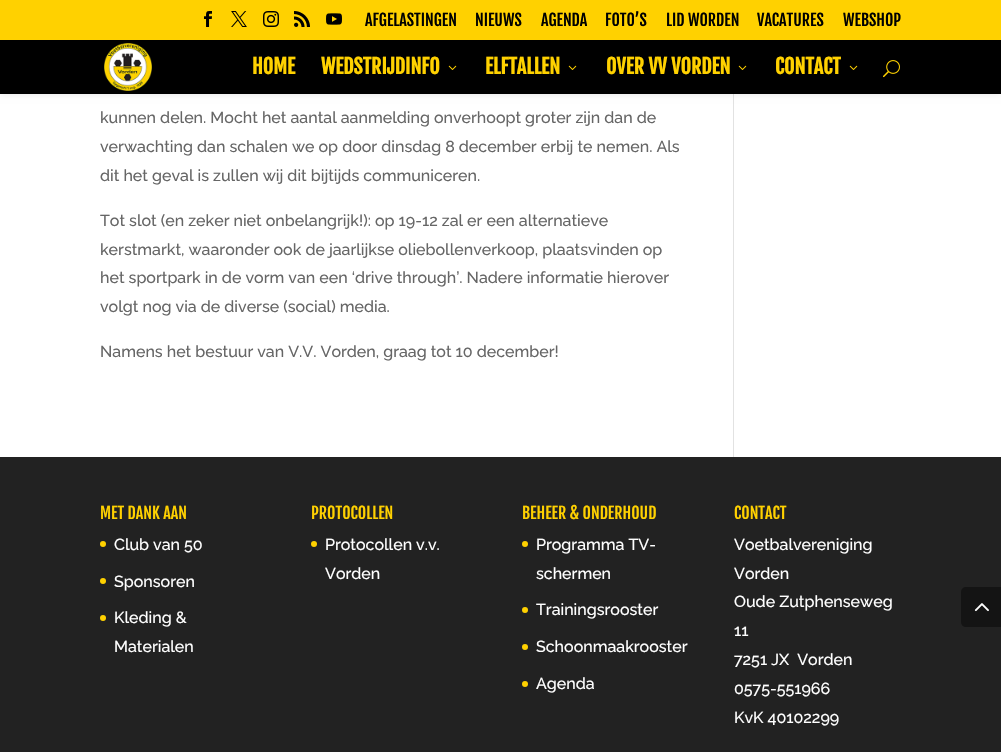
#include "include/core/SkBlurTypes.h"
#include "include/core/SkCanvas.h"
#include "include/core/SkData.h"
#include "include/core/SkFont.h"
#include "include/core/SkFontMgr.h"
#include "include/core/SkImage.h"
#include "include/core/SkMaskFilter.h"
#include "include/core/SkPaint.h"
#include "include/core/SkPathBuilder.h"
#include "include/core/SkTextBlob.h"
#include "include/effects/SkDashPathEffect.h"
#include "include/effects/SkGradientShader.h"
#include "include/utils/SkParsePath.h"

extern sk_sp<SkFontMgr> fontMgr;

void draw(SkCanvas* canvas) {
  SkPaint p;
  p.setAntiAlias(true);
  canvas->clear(SK_ColorWHITE);
  p.setColor(SkColorSetRGB(226, 226, 226));
  canvas->drawRect(SkRect::MakeLTRB(733, 94, 734, 457), p);
  p.setColor(SkColorSetARGB(26, 0, 0, 0));
  p.setMaskFilter(SkMaskFilter::MakeBlur(kNormal_SkBlurStyle, 3.5f));
  canvas->drawRect(SkRect::MakeLTRB(0, 40, 1001, 94), p);
  p.setMaskFilter(nullptr);
  p.setColor(SkColorSetRGB(255, 209, 0));
  canvas->drawRect(SkRect::MakeLTRB(0, 0, 1001, 40), p);
  canvas->drawImageRect(SkImages::DeferredFromEncodedData(SkData::MakeFromFileName("images/1.png")), SkRect::MakeLTRB(204, 11, 212, 27), SkSamplingOptions());
  canvas->drawImageRect(SkImages::DeferredFromEncodedData(SkData::MakeFromFileName("images/2.png")), SkRect::MakeLTRB(231, 11, 247, 27), SkSamplingOptions());
  canvas->drawImageRect(SkImages::DeferredFromEncodedData(SkData::MakeFromFileName("images/3.png")), SkRect::MakeLTRB(263, 11, 279, 27), SkSamplingOptions());
  canvas->drawImageRect(SkImages::DeferredFromEncodedData(SkData::MakeFromFileName("images/4.png")), SkRect::MakeLTRB(294, 11, 310, 27), SkSamplingOptions());
  canvas->drawImageRect(SkImages::DeferredFromEncodedData(SkData::MakeFromFileName("images/5.png")), SkRect::MakeLTRB(326, 13, 342, 25), SkSamplingOptions());
  p.setColor(SK_ColorBLACK);
  canvas->drawRect(SkRect::MakeLTRB(0, 40, 1001, 94), p);
  canvas->drawImageRect(SkImages::DeferredFromEncodedData(SkData::MakeFromFileName("images/6.png")), SkRect::MakeLTRB(104, 43, 152, 91), SkSamplingOptions());
  canvas->drawImageRect(SkImages::DeferredFromEncodedData(SkData::MakeFromFileName("images/7.png")), SkRect::MakeLTRB(448, 65, 457, 70), SkSamplingOptions());
  canvas->drawImageRect(SkImages::DeferredFromEncodedData(SkData::MakeFromFileName("images/7.png")), SkRect::MakeLTRB(568, 65, 577, 70), SkSamplingOptions());
  canvas->drawImageRect(SkImages::DeferredFromEncodedData(SkData::MakeFromFileName("images/7.png")), SkRect::MakeLTRB(738, 65, 747, 70), SkSamplingOptions());
  canvas->drawImageRect(SkImages::DeferredFromEncodedData(SkData::MakeFromFileName("images/7.png")), SkRect::MakeLTRB(849, 65, 858, 70), SkSamplingOptions());
  canvas->drawImageRect(SkImages::DeferredFromEncodedData(SkData::MakeFromFileName("images/8.png")), SkRect::MakeLTRB(883, 60, 900, 78), SkSamplingOptions());
  p.setColor(SkColorSetRGB(34, 34, 34));
  canvas->drawRect(SkRect::MakeLTRB(0, 457, 1001, 752), p);
  p.setColor(SkColorSetRGB(255, 209, 0));
  canvas->drawCircle(103, 544, 3, p);
  canvas->drawCircle(103, 581, 3, p);
  canvas->drawCircle(103, 618, 3, p);
  canvas->drawCircle(314, 544, 3, p);
  canvas->drawCircle(525, 544, 3, p);
  canvas->drawCircle(525, 610, 3, p);
  canvas->drawCircle(525, 647, 3, p);
  canvas->drawCircle(525, 684, 3, p);
  p.setColor(SkColorSetRGB(20, 20, 20));
  canvas->drawPath(SkPathBuilder().moveTo(966, 587).lineTo(1001, 587).lineTo(1001, 627).lineTo(966, 627).cubicTo(963, 627, 961, 625, 961, 622).lineTo(961, 592).cubicTo(961, 589, 963, 587, 966, 587).close().detach(), p);
  canvas->drawImageRect(SkImages::DeferredFromEncodedData(SkData::MakeFromFileName("images/9.png")), SkRect::MakeLTRB(974, 603, 989, 612), SkSamplingOptions());
  SkFont font1(fontMgr->matchFamilyStyle("Fjalla One", SkFontStyle::Normal()), 16);
  font1.setSubpixel(true);
  p.setColor(SK_ColorBLACK);
  canvas->drawString("AFGELASTINGEN", 365, 26, font1, p);
  canvas->drawString("NIEUWS", 475, 26, font1, p);
  canvas->drawString("AGENDA", 541, 26, font1, p);
  canvas->drawString("FOTO’S", 605, 26, font1, p);
  canvas->drawString("LID WORDEN", 666, 26, font1, p);
  canvas->drawString("VACATURES", 757, 26, font1, p);
  canvas->drawString("WEBSHOP", 843, 26, font1, p);
  SkFont font2(fontMgr->matchFamilyStyle("Fjalla One", SkFontStyle::Bold()), 20);
  font2.setSubpixel(true);
  p.setColor(SkColorSetRGB(255, 209, 0));
  canvas->drawString("HOME", 252, 74, font2, p);
  canvas->drawString("WEDSTRIJDINFO", 321, 74, font2, p);
  canvas->drawString("ELFTALLEN", 485, 74, font2, p);
  canvas->drawString("OVER VV VORDEN", 606, 74, font2, p);
  canvas->drawString("CONTACT", 775, 74, font2, p);
  SkFont font3(fontMgr->matchFamilyStyle("Raleway", SkFontStyle(100, SkFontStyle::kNormal_Width, SkFontStyle::kUpright_Slant)), 16);
  font3.setSubpixel(true);
  p.setColor(SkColorSetRGB(102, 102, 102));
  canvas->drawString("kunnen delen. Mocht het aantal aanmelding onverhoopt groter zijn dan de", 100, 123, font3, p);
  canvas->drawString("verwachting dan schalen we op door dinsdag 8 december erbij te nemen. Als", 100, 152, font3, p);
  canvas->drawString("dit het geval is zullen wij dit bijtijds communiceren.", 100, 181, font3, p);
  canvas->drawString("Tot slot (en zeker niet onbelangrijk!): op 19-12 zal er een alternatieve", 100, 226, font3, p);
  canvas->drawString("kerstmarkt, waaronder ook de jaarlijkse oliebollenverkoop, plaatsvinden op", 100, 255, font3, p);
  canvas->drawString("het sportpark in de vorm van een ‘drive through’. Nadere informatie hierover", 100, 283, font3, p);
  canvas->drawString("volgt nog via de diverse (social) media.", 100, 312, font3, p);
  canvas->drawString("Namens het bestuur van V.V. Vorden, graag tot 10 december!", 100, 357, font3, p);
  p.setColor(SkColorSetRGB(255, 209, 0));
  canvas->drawString("MET DANK AAN", 100, 519, font1, p);
  p.setColor(SK_ColorWHITE);
  canvas->drawString("Club van 50", 114, 550, font3, p);
  canvas->drawString("Sponsoren", 114, 587, font3, p);
  canvas->drawString("Kleding &", 114, 623, font3, p);
  canvas->drawString("Materialen", 114, 652, font3, p);
  p.setColor(SkColorSetRGB(255, 209, 0));
  canvas->drawString("PROTOCOLLEN", 311, 519, font1, p);
  p.setColor(SK_ColorWHITE);
  canvas->drawString("Protocollen v.v.", 325, 550, font3, p);
  canvas->drawString("Vorden", 325, 579, font3, p);
  p.setColor(SkColorSetRGB(255, 209, 0));
  canvas->drawString("BEHEER & ONDERHOUD", 522, 519, font1, p);
  p.setColor(SK_ColorWHITE);
  canvas->drawString("Programma TV-", 536, 550, font3, p);
  canvas->drawString("schermen", 536, 579, font3, p);
  canvas->drawString("Trainingsrooster", 536, 615, font3, p);
  canvas->drawString("Schoonmaakrooster", 536, 652, font3, p);
  canvas->drawString("Agenda", 536, 689, font3, p);
  p.setColor(SkColorSetRGB(255, 209, 0));
  canvas->drawString("CONTACT", 734, 519, font1, p);
  p.setColor(SK_ColorWHITE);
  canvas->drawString("Voetbalvereniging", 734, 550, font3, p);
  canvas->drawString("Vorden", 734, 579, font3, p);
  canvas->drawString("Oude Zutphenseweg", 734, 607, font3, p);
  canvas->drawString("11", 734, 636, font3, p);
  canvas->drawString("7251 JX  Vorden", 734, 665, font3, p);
  canvas->drawString("0575-551966", 734, 694, font3, p);
  canvas->drawString("KvK 40102299", 734, 723, font3, p);
}
